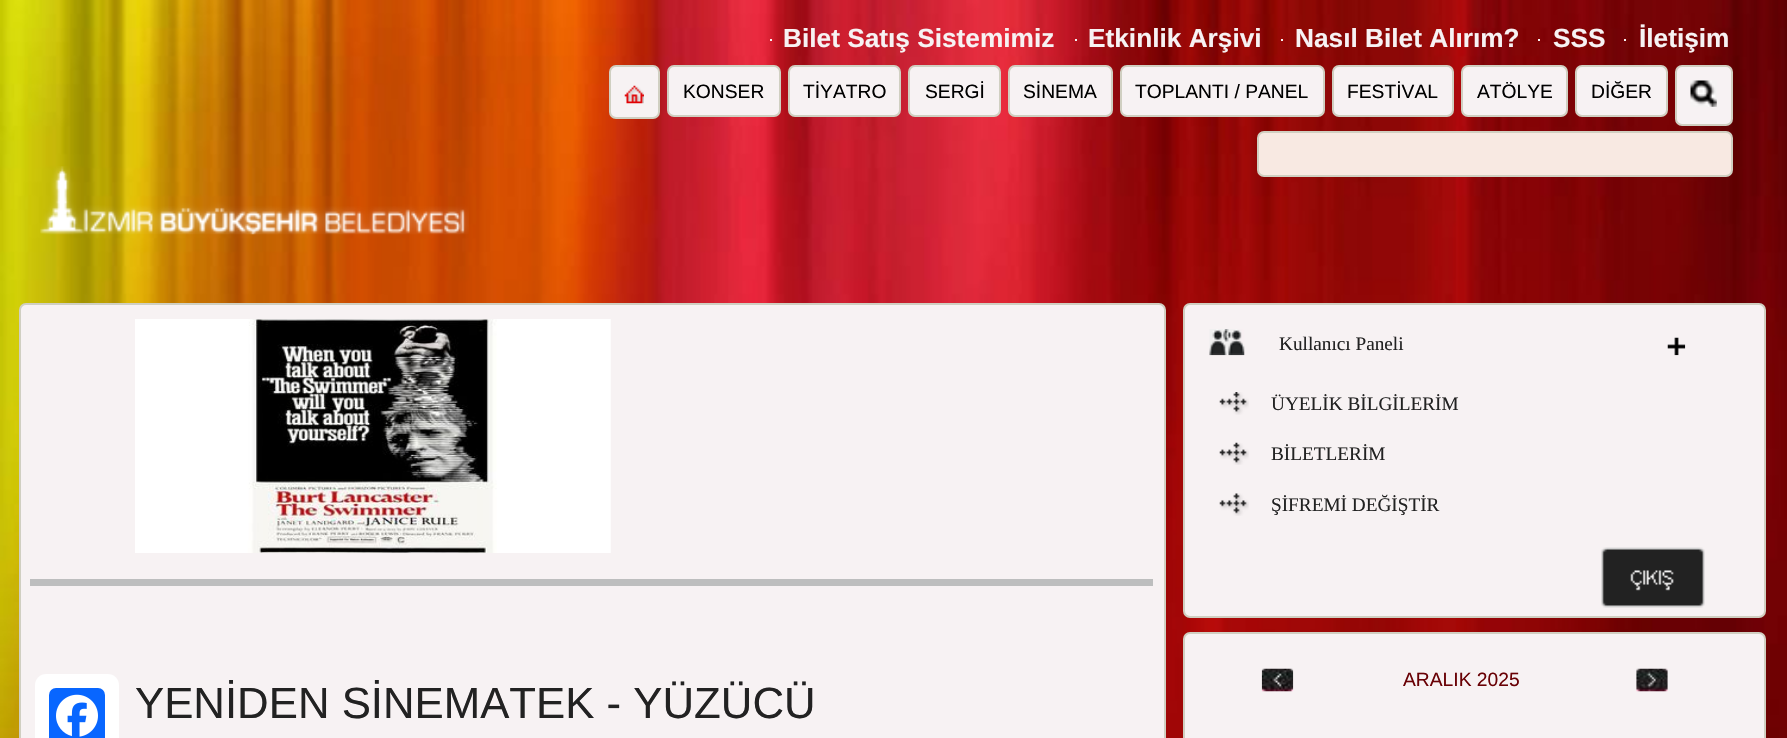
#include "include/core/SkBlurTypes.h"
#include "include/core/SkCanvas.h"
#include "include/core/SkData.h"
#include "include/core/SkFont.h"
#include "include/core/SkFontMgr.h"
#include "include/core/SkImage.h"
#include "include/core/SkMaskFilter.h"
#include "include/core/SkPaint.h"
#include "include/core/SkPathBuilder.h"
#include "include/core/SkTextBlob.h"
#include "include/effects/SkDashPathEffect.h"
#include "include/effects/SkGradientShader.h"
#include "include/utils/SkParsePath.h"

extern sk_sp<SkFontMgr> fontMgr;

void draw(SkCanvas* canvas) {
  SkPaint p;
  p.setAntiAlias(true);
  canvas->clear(SK_ColorWHITE);
  canvas->drawImageRect(SkImages::DeferredFromEncodedData(SkData::MakeFromFileName("images/1.png")), SkRect::MakeLTRB(0, 0, 1787, 738), SkSamplingOptions());
  p.setColor(SkColorSetRGB(247, 242, 243));
  canvas->drawRect(SkRect::MakeLTRB(770, 39, 772, 41), p);
  canvas->drawRect(SkRect::MakeLTRB(1075, 39, 1077, 41), p);
  canvas->drawRect(SkRect::MakeLTRB(1281, 39, 1283, 41), p);
  canvas->drawRect(SkRect::MakeLTRB(1538, 39, 1540, 41), p);
  canvas->drawRect(SkRect::MakeLTRB(1624, 39, 1626, 41), p);
  canvas->drawRoundRect(SkRect::MakeLTRB(610, 66, 659, 118), 6, 6, p);
  p.setStyle(SkPaint::kStroke_Style);
  p.setStrokeWidth(2);
  p.setColor(SkColorSetRGB(208, 207, 193));
  canvas->drawRoundRect(SkRect::MakeLTRB(610, 66, 659, 118), 6, 6, p);
  canvas->drawImageRect(SkImages::DeferredFromEncodedData(SkData::MakeFromFileName("images/2.png")), SkRect::MakeLTRB(624, 85, 644, 104), SkSamplingOptions());
  p.setStyle(SkPaint::kFill_Style);
  p.setColor(SkColorSetRGB(247, 242, 243));
  canvas->drawRoundRect(SkRect::MakeLTRB(668, 66, 780, 116), 6, 6, p);
  p.setStyle(SkPaint::kStroke_Style);
  p.setColor(SkColorSetRGB(208, 207, 193));
  canvas->drawRoundRect(SkRect::MakeLTRB(668, 66, 780, 116), 6, 6, p);
  p.setStyle(SkPaint::kFill_Style);
  p.setColor(SkColorSetRGB(247, 242, 243));
  canvas->drawRoundRect(SkRect::MakeLTRB(789, 66, 900, 116), 6, 6, p);
  p.setStyle(SkPaint::kStroke_Style);
  p.setColor(SkColorSetRGB(208, 207, 193));
  canvas->drawRoundRect(SkRect::MakeLTRB(789, 66, 900, 116), 6, 6, p);
  p.setStyle(SkPaint::kFill_Style);
  p.setColor(SkColorSetRGB(247, 242, 243));
  canvas->drawRoundRect(SkRect::MakeLTRB(909, 66, 1000, 116), 6, 6, p);
  p.setStyle(SkPaint::kStroke_Style);
  p.setColor(SkColorSetRGB(208, 207, 193));
  canvas->drawRoundRect(SkRect::MakeLTRB(909, 66, 1000, 116), 6, 6, p);
  p.setStyle(SkPaint::kFill_Style);
  p.setColor(SkColorSetRGB(247, 242, 243));
  canvas->drawRoundRect(SkRect::MakeLTRB(1009, 66, 1112, 116), 6, 6, p);
  p.setStyle(SkPaint::kStroke_Style);
  p.setColor(SkColorSetRGB(208, 207, 193));
  canvas->drawRoundRect(SkRect::MakeLTRB(1009, 66, 1112, 116), 6, 6, p);
  p.setStyle(SkPaint::kFill_Style);
  p.setColor(SkColorSetRGB(247, 242, 243));
  canvas->drawRoundRect(SkRect::MakeLTRB(1121, 66, 1324, 116), 6, 6, p);
  p.setStyle(SkPaint::kStroke_Style);
  p.setColor(SkColorSetRGB(208, 207, 193));
  canvas->drawRoundRect(SkRect::MakeLTRB(1121, 66, 1324, 116), 6, 6, p);
  p.setStyle(SkPaint::kFill_Style);
  p.setColor(SkColorSetRGB(247, 242, 243));
  canvas->drawRoundRect(SkRect::MakeLTRB(1333, 66, 1453, 116), 6, 6, p);
  p.setStyle(SkPaint::kStroke_Style);
  p.setColor(SkColorSetRGB(208, 207, 193));
  canvas->drawRoundRect(SkRect::MakeLTRB(1333, 66, 1453, 116), 6, 6, p);
  p.setStyle(SkPaint::kFill_Style);
  p.setColor(SkColorSetRGB(247, 242, 243));
  canvas->drawRoundRect(SkRect::MakeLTRB(1462, 66, 1567, 116), 6, 6, p);
  p.setStyle(SkPaint::kStroke_Style);
  p.setColor(SkColorSetRGB(208, 207, 193));
  canvas->drawRoundRect(SkRect::MakeLTRB(1462, 66, 1567, 116), 6, 6, p);
  p.setStyle(SkPaint::kFill_Style);
  p.setColor(SkColorSetRGB(247, 242, 243));
  canvas->drawRoundRect(SkRect::MakeLTRB(1576, 66, 1667, 116), 6, 6, p);
  p.setStyle(SkPaint::kStroke_Style);
  p.setColor(SkColorSetRGB(208, 207, 193));
  canvas->drawRoundRect(SkRect::MakeLTRB(1576, 66, 1667, 116), 6, 6, p);
  p.setStyle(SkPaint::kFill_Style);
  p.setColor(SkColorSetRGB(247, 242, 243));
  canvas->drawRoundRect(SkRect::MakeLTRB(1676, 66, 1732, 125), 6, 6, p);
  p.setStyle(SkPaint::kStroke_Style);
  p.setColor(SkColorSetRGB(208, 207, 193));
  canvas->drawRoundRect(SkRect::MakeLTRB(1676, 66, 1732, 125), 6, 6, p);
  canvas->drawImageRect(SkImages::DeferredFromEncodedData(SkData::MakeFromFileName("images/3.png")), SkRect::MakeLTRB(1690, 80, 1717, 107), SkSamplingOptions());
  p.setStyle(SkPaint::kFill_Style);
  p.setColor(SkColorSetRGB(248, 233, 226));
  canvas->drawRoundRect(SkRect::MakeLTRB(1258, 132, 1732, 176), 6, 6, p);
  p.setStyle(SkPaint::kStroke_Style);
  p.setColor(SkColorSetRGB(208, 207, 193));
  canvas->drawRoundRect(SkRect::MakeLTRB(1258, 132, 1732, 176), 6, 6, p);
  canvas->drawImageRect(SkImages::DeferredFromEncodedData(SkData::MakeFromFileName("images/4.png")), SkRect::MakeLTRB(40, 166, 469, 235), SkSamplingOptions());
  p.setStyle(SkPaint::kFill_Style);
  p.setColor(SkColorSetRGB(247, 242, 243));
  canvas->drawRoundRect(SkRect::MakeLTRB(1184, 304, 1765, 617), 6, 6, p);
  p.setStyle(SkPaint::kStroke_Style);
  p.setColor(SkColorSetRGB(208, 207, 193));
  canvas->drawRoundRect(SkRect::MakeLTRB(1184, 304, 1765, 617), 6, 6, p);
  canvas->drawImageRect(SkImages::DeferredFromEncodedData(SkData::MakeFromFileName("images/5.png")), SkRect::MakeLTRB(1209, 329, 1245, 356), SkSamplingOptions());
  canvas->drawImageRect(SkImages::DeferredFromEncodedData(SkData::MakeFromFileName("images/6.png")), SkRect::MakeLTRB(1667, 337, 1686, 356), SkSamplingOptions());
  canvas->drawImageRect(SkImages::DeferredFromEncodedData(SkData::MakeFromFileName("images/7.png")), SkRect::MakeLTRB(1219, 392, 1249, 415), SkSamplingOptions());
  canvas->drawImageRect(SkImages::DeferredFromEncodedData(SkData::MakeFromFileName("images/8.png")), SkRect::MakeLTRB(1219, 442, 1249, 465), SkSamplingOptions());
  canvas->drawImageRect(SkImages::DeferredFromEncodedData(SkData::MakeFromFileName("images/9.png")), SkRect::MakeLTRB(1219, 493, 1249, 516), SkSamplingOptions());
  canvas->drawImageRect(SkImages::DeferredFromEncodedData(SkData::MakeFromFileName("images/10.png")), SkRect::MakeLTRB(1601, 547, 1705, 608), SkSamplingOptions());
  p.setStyle(SkPaint::kFill_Style);
  p.setColor(SkColorSetRGB(247, 242, 243));
  canvas->drawRoundRect(SkRect::MakeLTRB(1184, 633, 1765, 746), 6, 6, p);
  p.setStyle(SkPaint::kStroke_Style);
  p.setColor(SkColorSetRGB(208, 207, 193));
  canvas->drawRoundRect(SkRect::MakeLTRB(1184, 633, 1765, 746), 6, 6, p);
  canvas->drawImageRect(SkImages::DeferredFromEncodedData(SkData::MakeFromFileName("images/11.png")), SkRect::MakeLTRB(1261, 668, 1294, 692), SkSamplingOptions());
  canvas->drawImageRect(SkImages::DeferredFromEncodedData(SkData::MakeFromFileName("images/12.png")), SkRect::MakeLTRB(1636, 668, 1668, 692), SkSamplingOptions());
  p.setStyle(SkPaint::kFill_Style);
  p.setColor(SkColorSetRGB(247, 242, 243));
  canvas->drawRoundRect(SkRect::MakeLTRB(20, 304, 1165, 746), 6, 6, p);
  p.setStyle(SkPaint::kStroke_Style);
  p.setColor(SkColorSetRGB(208, 207, 193));
  canvas->drawRoundRect(SkRect::MakeLTRB(20, 304, 1165, 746), 6, 6, p);
  p.setStyle(SkPaint::kFill_Style);
  p.setColor(SkColorSetRGB(189, 190, 190));
  canvas->drawRect(SkRect::MakeLTRB(30, 579, 1153, 586), p);
  canvas->drawImageRect(SkImages::DeferredFromEncodedData(SkData::MakeFromFileName("images/13.png")), SkRect::MakeLTRB(135, 319, 611, 553), SkSamplingOptions());
  p.setColor(SK_ColorWHITE);
  canvas->drawRoundRect(SkRect::MakeLTRB(35, 674, 119, 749), 11, 11, p);
  p.setColor(SkColorSetRGB(8, 102, 255));
  canvas->drawRoundRect(SkRect::MakeLTRB(49, 688, 105, 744), 7, 7, p);
  canvas->drawImageRect(SkImages::DeferredFromEncodedData(SkData::MakeFromFileName("images/14.png")), SkRect::MakeLTRB(56, 694, 98, 737), SkSamplingOptions());
  SkFont font1(fontMgr->matchFamilyStyle("Liberation Sans", SkFontStyle::Bold()), 26.25f);
  font1.setSubpixel(true);
  p.setColor(SkColorSetRGB(247, 242, 243));
  canvas->drawString("Bilet Satış Sistemimiz", 783, 47, font1, p);
  canvas->drawString("Etkinlik Arşivi", 1088, 47, font1, p);
  canvas->drawString("Nasıl Bilet Alırım?", 1295, 47, font1, p);
  canvas->drawString("SSS", 1553, 47, font1, p);
  canvas->drawString("İletişim", 1639, 47, font1, p);
  SkFont font2(fontMgr->matchFamilyStyle("Liberation Sans", SkFontStyle::Normal()), 19.25f);
  font2.setSubpixel(true);
  p.setColor(SK_ColorBLACK);
  canvas->drawString("KONSER", 683, 98, font2, p);
  canvas->drawString("TİYATRO", 803, 98, font2, p);
  canvas->drawString("SERGİ", 925, 98, font2, p);
  canvas->drawString("SİNEMA", 1023, 98, font2, p);
  canvas->drawString("TOPLANTI / PANEL", 1135, 98, font2, p);
  canvas->drawString("FESTİVAL", 1347, 98, font2, p);
  canvas->drawString("ATÖLYE", 1477, 98, font2, p);
  canvas->drawString("DİĞER", 1591, 98, font2, p);
  SkFont font3(fontMgr->matchFamilyStyle("Liberation Serif", SkFontStyle::Normal()), 19.25f);
  font3.setSubpixel(true);
  p.setColor(SkColorSetRGB(34, 34, 34));
  canvas->drawString("Kullanıcı Paneli", 1279, 350, font3, p);
  canvas->drawString("ÜYELİK BİLGİLERİM", 1271, 410, font3, p);
  canvas->drawString("BİLETLERİM", 1271, 460, font3, p);
  canvas->drawString("ŞİFREMİ DEĞİŞTİR", 1271, 511, font3, p);
  p.setColor(SkColorSetRGB(105, 1, 5));
  canvas->drawString("ARALIK 2025", 1403, 686, font2, p);
  SkFont font4(fontMgr->matchFamilyStyle("Liberation Sans", SkFontStyle::Normal()), 43.75f);
  font4.setSubpixel(true);
  p.setColor(SkColorSetRGB(34, 34, 34));
  canvas->drawString("YENİDEN SİNEMATEK - YÜZÜCÜ", 135, 718, font4, p);
}
